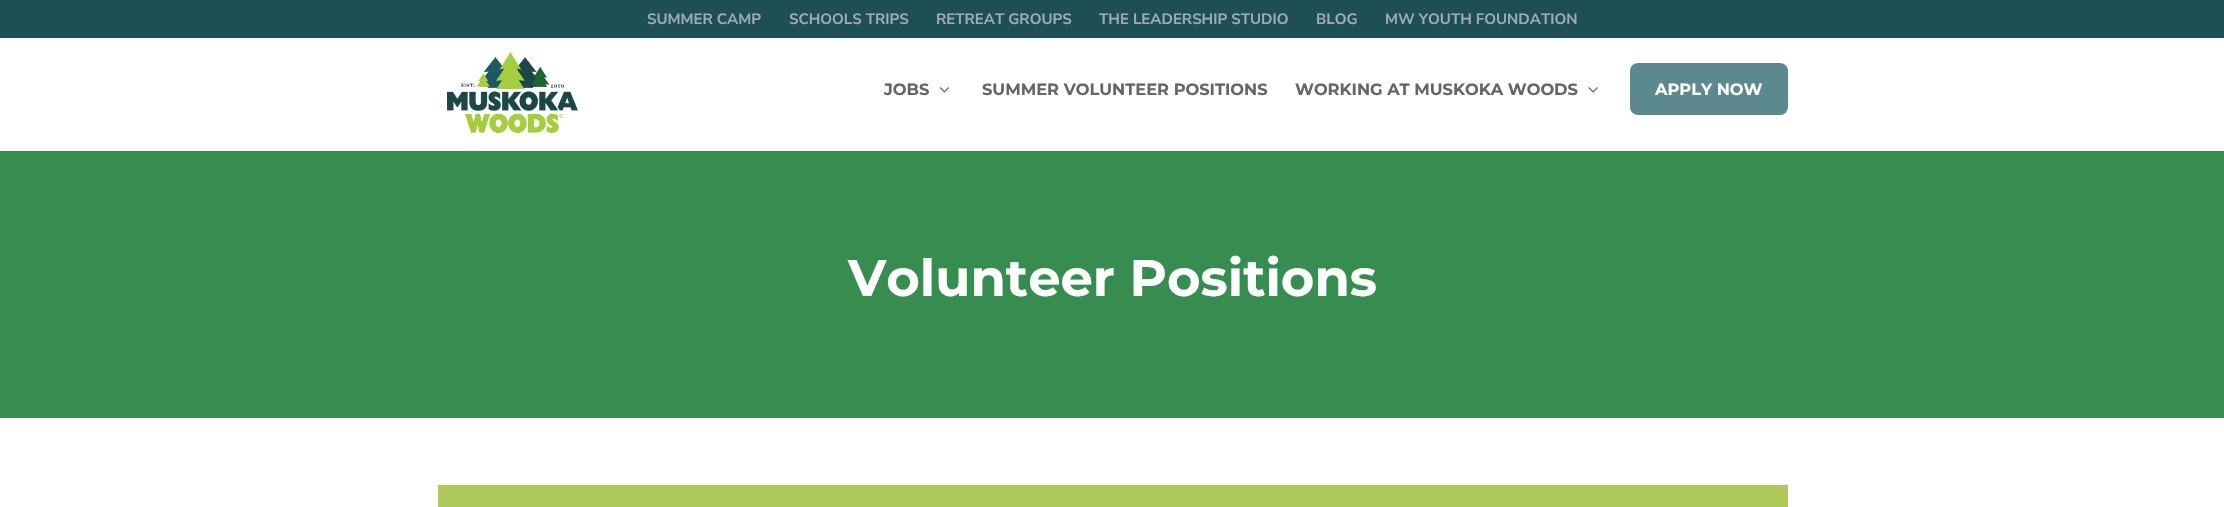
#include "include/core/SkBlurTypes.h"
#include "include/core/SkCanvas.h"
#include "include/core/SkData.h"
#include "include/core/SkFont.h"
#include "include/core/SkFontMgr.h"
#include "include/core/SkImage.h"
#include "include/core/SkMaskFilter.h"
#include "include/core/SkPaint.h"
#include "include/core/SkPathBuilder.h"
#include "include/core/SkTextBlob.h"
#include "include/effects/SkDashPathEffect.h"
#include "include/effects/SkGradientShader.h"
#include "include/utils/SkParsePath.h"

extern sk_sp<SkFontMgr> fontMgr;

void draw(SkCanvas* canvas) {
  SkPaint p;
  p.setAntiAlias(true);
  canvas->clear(SK_ColorWHITE);
  p.setColor(SkColorSetRGB(30, 79, 82));
  canvas->drawRect(SkRect::MakeLTRB(0, 0, 2224, 38), p);
  canvas->drawImageRect(SkImages::DeferredFromEncodedData(SkData::MakeFromFileName("images/1.png")), SkRect::MakeLTRB(447, 52, 578, 134), SkSamplingOptions());
  canvas->drawImageRect(SkImages::DeferredFromEncodedData(SkData::MakeFromFileName("images/2.png")), SkRect::MakeLTRB(939, 87, 949, 93), SkSamplingOptions());
  canvas->drawImageRect(SkImages::DeferredFromEncodedData(SkData::MakeFromFileName("images/3.png")), SkRect::MakeLTRB(1588, 87, 1598, 93), SkSamplingOptions());
  p.setColor(SkColorSetRGB(92, 137, 142));
  canvas->drawRoundRect(SkRect::MakeLTRB(1630, 63, 1788, 115), 8, 8, p);
  p.setColor(SkColorSetRGB(55, 140, 80));
  canvas->drawRect(SkRect::MakeLTRB(0, 151, 2224, 418), p);
  p.setColor(SkColorSetRGB(174, 202, 91));
  canvas->drawRect(SkRect::MakeLTRB(438, 485, 1788, 507), p);
  SkFont font1(fontMgr->matchFamilyStyle("Nunito Sans", SkFontStyle(200, SkFontStyle::kNormal_Width, SkFontStyle::kUpright_Slant)), 15);
  font1.setSubpixel(true);
  p.setColor(SkColorSetRGB(155, 172, 181));
  canvas->drawString("SUMMER CAMP", 647, 24, font1, p);
  canvas->drawString("SCHOOLS TRIPS", 789, 24, font1, p);
  canvas->drawString("RETREAT GROUPS", 936, 24, font1, p);
  canvas->drawString("THE LEADERSHIP STUDIO", 1099, 24, font1, p);
  canvas->drawString("BLOG", 1316, 24, font1, p);
  canvas->drawString("MW YOUTH FOUNDATION", 1385, 24, font1, p);
  SkFont font2(fontMgr->matchFamilyStyle("Montserrat", SkFontStyle(100, SkFontStyle::kNormal_Width, SkFontStyle::kUpright_Slant)), 16.25f);
  font2.setSubpixel(true);
  p.setColor(SkColorSetRGB(102, 102, 102));
  canvas->drawString("JOBS", 884, 95, font2, p);
  canvas->drawString("SUMMER VOLUNTEER POSITIONS", 982, 95, font2, p);
  canvas->drawString("WORKING AT MUSKOKA WOODS", 1295, 95, font2, p);
  p.setColor(SK_ColorWHITE);
  canvas->drawString("APPLY NOW", 1655, 95, font2, p);
  SkFont font3(fontMgr->matchFamilyStyle("Montserrat", SkFontStyle(100, SkFontStyle::kNormal_Width, SkFontStyle::kUpright_Slant)), 51.25f);
  font3.setSubpixel(true);
  canvas->drawString("Volunteer Positions", 848, 296, font3, p);
}
